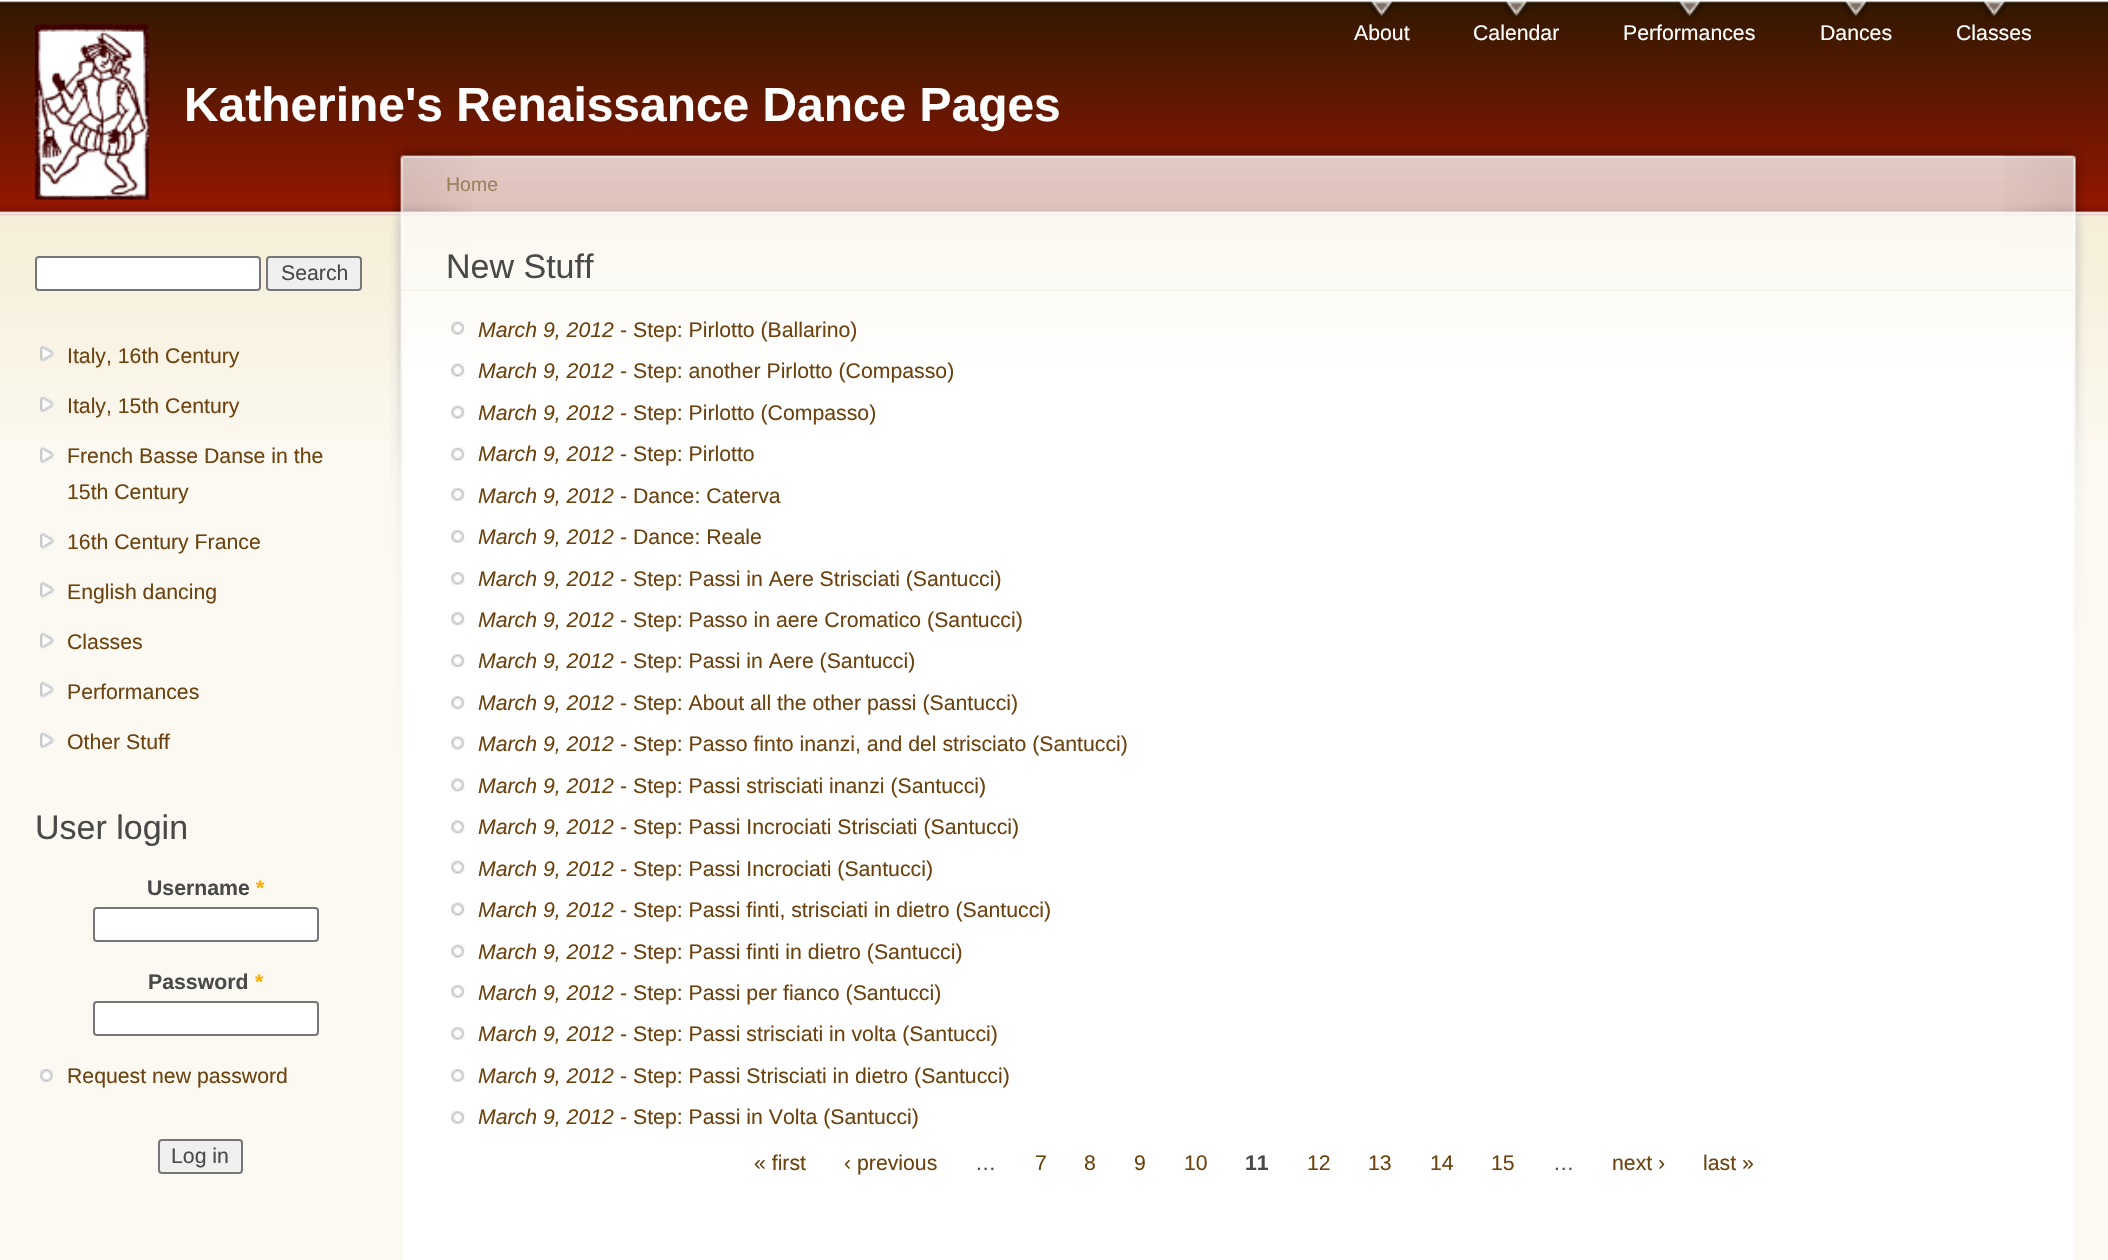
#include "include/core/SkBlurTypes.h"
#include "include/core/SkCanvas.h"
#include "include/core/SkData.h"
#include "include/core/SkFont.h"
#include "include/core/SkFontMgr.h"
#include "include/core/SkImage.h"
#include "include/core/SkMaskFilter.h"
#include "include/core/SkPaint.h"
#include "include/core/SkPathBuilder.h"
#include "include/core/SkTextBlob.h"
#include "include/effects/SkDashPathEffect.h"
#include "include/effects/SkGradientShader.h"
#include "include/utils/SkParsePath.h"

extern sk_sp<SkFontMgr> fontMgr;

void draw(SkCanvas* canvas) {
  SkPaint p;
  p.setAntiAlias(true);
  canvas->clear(SkColorSetRGB(251, 249, 242));
  canvas->drawImageRect(SkImages::DeferredFromEncodedData(SkData::MakeFromFileName("images/1.png")), SkRect::MakeLTRB(0, 0, 2108, 439), SkSamplingOptions());
  canvas->drawImageRect(SkImages::DeferredFromEncodedData(SkData::MakeFromFileName("images/2.png")), SkRect::MakeLTRB(1369, 1, 1394, 18), SkSamplingOptions());
  canvas->drawImageRect(SkImages::DeferredFromEncodedData(SkData::MakeFromFileName("images/3.png")), SkRect::MakeLTRB(1504, 1, 1529, 18), SkSamplingOptions());
  canvas->drawImageRect(SkImages::DeferredFromEncodedData(SkData::MakeFromFileName("images/4.png")), SkRect::MakeLTRB(1677, 1, 1702, 18), SkSamplingOptions());
  canvas->drawImageRect(SkImages::DeferredFromEncodedData(SkData::MakeFromFileName("images/5.png")), SkRect::MakeLTRB(1844, 1, 1868, 18), SkSamplingOptions());
  canvas->drawImageRect(SkImages::DeferredFromEncodedData(SkData::MakeFromFileName("images/6.png")), SkRect::MakeLTRB(1982, 1, 2006, 18), SkSamplingOptions());
  canvas->drawImageRect(SkImages::DeferredFromEncodedData(SkData::MakeFromFileName("images/7.png")), SkRect::MakeLTRB(35, 24, 149, 200), SkSamplingOptions());
  p.setColor(SK_ColorWHITE);
  canvas->drawRoundRect(SkRect::MakeLTRB(36, 257, 260, 290), 3, 3, p);
  p.setStyle(SkPaint::kStroke_Style);
  p.setStrokeWidth(2);
  p.setColor(SkColorSetRGB(118, 118, 118));
  canvas->drawRoundRect(SkRect::MakeLTRB(36, 257, 260, 290), 3, 3, p);
  p.setStyle(SkPaint::kFill_Style);
  p.setColor(SkColorSetRGB(239, 239, 239));
  canvas->drawRoundRect(SkRect::MakeLTRB(267, 257, 361, 290), 3, 3, p);
  p.setStyle(SkPaint::kStroke_Style);
  p.setColor(SkColorSetRGB(118, 118, 118));
  canvas->drawRoundRect(SkRect::MakeLTRB(267, 257, 361, 290), 3, 3, p);
  canvas->drawImageRect(SkImages::DeferredFromEncodedData(SkData::MakeFromFileName("images/8.png")), SkRect::MakeLTRB(40, 345, 55, 362), SkSamplingOptions());
  canvas->drawImageRect(SkImages::DeferredFromEncodedData(SkData::MakeFromFileName("images/9.png")), SkRect::MakeLTRB(40, 395, 55, 413), SkSamplingOptions());
  canvas->drawImageRect(SkImages::DeferredFromEncodedData(SkData::MakeFromFileName("images/10.png")), SkRect::MakeLTRB(40, 446, 55, 464), SkSamplingOptions());
  canvas->drawImageRect(SkImages::DeferredFromEncodedData(SkData::MakeFromFileName("images/11.png")), SkRect::MakeLTRB(40, 532, 55, 550), SkSamplingOptions());
  canvas->drawImageRect(SkImages::DeferredFromEncodedData(SkData::MakeFromFileName("images/11.png")), SkRect::MakeLTRB(40, 581, 55, 599), SkSamplingOptions());
  canvas->drawImageRect(SkImages::DeferredFromEncodedData(SkData::MakeFromFileName("images/12.png")), SkRect::MakeLTRB(40, 631, 55, 650), SkSamplingOptions());
  canvas->drawImageRect(SkImages::DeferredFromEncodedData(SkData::MakeFromFileName("images/12.png")), SkRect::MakeLTRB(40, 680, 55, 699), SkSamplingOptions());
  canvas->drawImageRect(SkImages::DeferredFromEncodedData(SkData::MakeFromFileName("images/13.png")), SkRect::MakeLTRB(40, 731, 55, 749), SkSamplingOptions());
  p.setStyle(SkPaint::kFill_Style);
  p.setColor(SK_ColorWHITE);
  canvas->drawRoundRect(SkRect::MakeLTRB(94, 908, 318, 941), 3, 3, p);
  p.setStyle(SkPaint::kStroke_Style);
  p.setColor(SkColorSetRGB(118, 118, 118));
  canvas->drawRoundRect(SkRect::MakeLTRB(94, 908, 318, 941), 3, 3, p);
  p.setStyle(SkPaint::kFill_Style);
  p.setColor(SK_ColorWHITE);
  canvas->drawRoundRect(SkRect::MakeLTRB(94, 1002, 318, 1035), 3, 3, p);
  p.setStyle(SkPaint::kStroke_Style);
  p.setColor(SkColorSetRGB(118, 118, 118));
  canvas->drawRoundRect(SkRect::MakeLTRB(94, 1002, 318, 1035), 3, 3, p);
  canvas->drawImageRect(SkImages::DeferredFromEncodedData(SkData::MakeFromFileName("images/14.png")), SkRect::MakeLTRB(40, 1069, 53, 1082), SkSamplingOptions());
  p.setStyle(SkPaint::kFill_Style);
  p.setColor(SkColorSetRGB(239, 239, 239));
  canvas->drawRoundRect(SkRect::MakeLTRB(159, 1140, 242, 1173), 3, 3, p);
  p.setStyle(SkPaint::kStroke_Style);
  p.setColor(SkColorSetRGB(118, 118, 118));
  canvas->drawRoundRect(SkRect::MakeLTRB(159, 1140, 242, 1173), 3, 3, p);
  p.setStyle(SkPaint::kFill_Style);
  p.setColor(SK_ColorWHITE);
  canvas->drawRect(SkRect::MakeLTRB(403, 490, 2074, 1260), p);
  canvas->drawImageRect(SkImages::DeferredFromEncodedData(SkData::MakeFromFileName("images/15.png")), SkRect::MakeLTRB(402, 140, 2004, 490), SkSamplingOptions());
  canvas->drawImageRect(SkImages::DeferredFromEncodedData(SkData::MakeFromFileName("images/16.png")), SkRect::MakeLTRB(2004, 140, 2086, 756), SkSamplingOptions());
  canvas->drawImageRect(SkImages::DeferredFromEncodedData(SkData::MakeFromFileName("images/17.png")), SkRect::MakeLTRB(390, 150, 473, 756), SkSamplingOptions());
  p.setColor(SkColorSetRGB(247, 245, 238));
  canvas->drawRect(SkRect::MakeLTRB(401, 289, 2076, 291), p);
  canvas->drawImageRect(SkImages::DeferredFromEncodedData(SkData::MakeFromFileName("images/18.png")), SkRect::MakeLTRB(451, 321, 465, 335), SkSamplingOptions());
  canvas->drawImageRect(SkImages::DeferredFromEncodedData(SkData::MakeFromFileName("images/19.png")), SkRect::MakeLTRB(451, 363, 465, 377), SkSamplingOptions());
  canvas->drawImageRect(SkImages::DeferredFromEncodedData(SkData::MakeFromFileName("images/20.png")), SkRect::MakeLTRB(451, 405, 465, 419), SkSamplingOptions());
  canvas->drawImageRect(SkImages::DeferredFromEncodedData(SkData::MakeFromFileName("images/20.png")), SkRect::MakeLTRB(451, 447, 465, 461), SkSamplingOptions());
  canvas->drawImageRect(SkImages::DeferredFromEncodedData(SkData::MakeFromFileName("images/21.png")), SkRect::MakeLTRB(451, 488, 465, 501), SkSamplingOptions());
  canvas->drawImageRect(SkImages::DeferredFromEncodedData(SkData::MakeFromFileName("images/21.png")), SkRect::MakeLTRB(451, 530, 465, 543), SkSamplingOptions());
  canvas->drawImageRect(SkImages::DeferredFromEncodedData(SkData::MakeFromFileName("images/21.png")), SkRect::MakeLTRB(451, 572, 465, 585), SkSamplingOptions());
  canvas->drawImageRect(SkImages::DeferredFromEncodedData(SkData::MakeFromFileName("images/22.png")), SkRect::MakeLTRB(451, 612, 465, 626), SkSamplingOptions());
  canvas->drawImageRect(SkImages::DeferredFromEncodedData(SkData::MakeFromFileName("images/22.png")), SkRect::MakeLTRB(451, 654, 465, 668), SkSamplingOptions());
  canvas->drawImageRect(SkImages::DeferredFromEncodedData(SkData::MakeFromFileName("images/22.png")), SkRect::MakeLTRB(451, 696, 465, 710), SkSamplingOptions());
  canvas->drawImageRect(SkImages::DeferredFromEncodedData(SkData::MakeFromFileName("images/23.png")), SkRect::MakeLTRB(451, 736, 465, 750), SkSamplingOptions());
  canvas->drawImageRect(SkImages::DeferredFromEncodedData(SkData::MakeFromFileName("images/23.png")), SkRect::MakeLTRB(451, 778, 465, 792), SkSamplingOptions());
  canvas->drawImageRect(SkImages::DeferredFromEncodedData(SkData::MakeFromFileName("images/23.png")), SkRect::MakeLTRB(451, 820, 465, 834), SkSamplingOptions());
  canvas->drawImageRect(SkImages::DeferredFromEncodedData(SkData::MakeFromFileName("images/20.png")), SkRect::MakeLTRB(451, 860, 465, 874), SkSamplingOptions());
  canvas->drawImageRect(SkImages::DeferredFromEncodedData(SkData::MakeFromFileName("images/20.png")), SkRect::MakeLTRB(451, 902, 465, 916), SkSamplingOptions());
  canvas->drawImageRect(SkImages::DeferredFromEncodedData(SkData::MakeFromFileName("images/20.png")), SkRect::MakeLTRB(451, 944, 465, 958), SkSamplingOptions());
  canvas->drawImageRect(SkImages::DeferredFromEncodedData(SkData::MakeFromFileName("images/21.png")), SkRect::MakeLTRB(451, 985, 465, 998), SkSamplingOptions());
  canvas->drawImageRect(SkImages::DeferredFromEncodedData(SkData::MakeFromFileName("images/21.png")), SkRect::MakeLTRB(451, 1027, 465, 1040), SkSamplingOptions());
  canvas->drawImageRect(SkImages::DeferredFromEncodedData(SkData::MakeFromFileName("images/21.png")), SkRect::MakeLTRB(451, 1069, 465, 1082), SkSamplingOptions());
  canvas->drawImageRect(SkImages::DeferredFromEncodedData(SkData::MakeFromFileName("images/21.png")), SkRect::MakeLTRB(451, 1111, 465, 1124), SkSamplingOptions());
  SkFont font1(fontMgr->matchFamilyStyle("Liberation Sans", SkFontStyle::Normal()), 21.25f);
  font1.setSubpixel(true);
  p.setColor(SK_ColorWHITE);
  canvas->drawString("About", 1354, 40, font1, p);
  canvas->drawString("Calendar", 1473, 40, font1, p);
  canvas->drawString("Performances", 1623, 40, font1, p);
  canvas->drawString("Dances", 1820, 40, font1, p);
  canvas->drawString("Classes", 1956, 40, font1, p);
  SkFont font2(fontMgr->matchFamilyStyle("Liberation Sans", SkFontStyle::Bold()), 47.9f);
  font2.setSubpixel(true);
  canvas->drawString("Katherine's Renaissance Dance Pages", 184, 121, font2, p);
  p.setColor(SkColorSetRGB(73, 73, 73));
  canvas->drawString("Search", 281, 280, font1, p);
  p.setColor(SkColorSetRGB(108, 66, 14));
  canvas->drawString("Italy, 16th Century", 67, 363, font1, p);
  canvas->drawString("Italy, 15th Century", 67, 413, font1, p);
  canvas->drawString("French Basse Danse in the", 67, 463, font1, p);
  canvas->drawString("15th Century", 67, 499, font1, p);
  canvas->drawString("16th Century France", 67, 549, font1, p);
  canvas->drawString("English dancing", 67, 599, font1, p);
  canvas->drawString("Classes", 67, 649, font1, p);
  canvas->drawString("Performances", 67, 699, font1, p);
  canvas->drawString("Other Stuff", 67, 749, font1, p);
  SkFont font3(fontMgr->matchFamilyStyle("Liberation Sans", SkFontStyle::Normal()), 34);
  font3.setSubpixel(true);
  p.setColor(SkColorSetRGB(73, 73, 73));
  canvas->drawString("User login", 35, 839, font3, p);
  SkFont font4(fontMgr->matchFamilyStyle("Liberation Sans", SkFontStyle::Bold()), 21.25f);
  font4.setSubpixel(true);
  canvas->drawString("Username", 147, 895, font4, p);
  p.setColor(SkColorSetRGB(255, 174, 0));
  canvas->drawString("*", 256, 895, font4, p);
  p.setColor(SkColorSetRGB(73, 73, 73));
  canvas->drawString("Password", 148, 989, font4, p);
  p.setColor(SkColorSetRGB(255, 174, 0));
  canvas->drawString("*", 255, 989, font4, p);
  p.setColor(SkColorSetRGB(108, 66, 14));
  canvas->drawString("Request new password", 67, 1083, font1, p);
  p.setColor(SkColorSetRGB(73, 73, 73));
  canvas->drawString("Log in", 171, 1163, font1, p);
  SkFont font5(fontMgr->matchFamilyStyle("Liberation Sans", SkFontStyle::Normal()), 19.5f);
  font5.setSubpixel(true);
  p.setColor(SkColorSetRGB(152, 128, 89));
  canvas->drawString("Home", 446, 191, font5, p);
  p.setColor(SkColorSetRGB(73, 73, 73));
  canvas->drawString("New Stuff", 446, 278, font3, p);
  SkFont font6(fontMgr->matchFamilyStyle("Liberation Sans", SkFontStyle::Italic()), 21.25f);
  font6.setSubpixel(true);
  p.setColor(SkColorSetRGB(108, 66, 14));
  canvas->drawString("March 9, 2012", 478, 337, font6, p);
  canvas->drawString("- Step: Pirlotto (Ballarino)", 620, 337, font1, p);
  canvas->drawString("March 9, 2012", 478, 378, font6, p);
  canvas->drawString("- Step: another Pirlotto (Compasso)", 620, 378, font1, p);
  canvas->drawString("March 9, 2012", 478, 420, font6, p);
  canvas->drawString("- Step: Pirlotto (Compasso)", 620, 420, font1, p);
  canvas->drawString("March 9, 2012", 478, 461, font6, p);
  canvas->drawString("- Step: Pirlotto", 620, 461, font1, p);
  canvas->drawString("March 9, 2012", 478, 503, font6, p);
  canvas->drawString("- Dance: Caterva", 620, 503, font1, p);
  canvas->drawString("March 9, 2012", 478, 544, font6, p);
  canvas->drawString("- Dance: Reale", 620, 544, font1, p);
  canvas->drawString("March 9, 2012", 478, 586, font6, p);
  canvas->drawString("- Step: Passi in Aere Strisciati (Santucci)", 620, 586, font1, p);
  canvas->drawString("March 9, 2012", 478, 627, font6, p);
  canvas->drawString("- Step: Passo in aere Cromatico (Santucci)", 620, 627, font1, p);
  canvas->drawString("March 9, 2012", 478, 668, font6, p);
  canvas->drawString("- Step: Passi in Aere (Santucci)", 620, 668, font1, p);
  canvas->drawString("March 9, 2012", 478, 710, font6, p);
  canvas->drawString("- Step: About all the other passi (Santucci)", 620, 710, font1, p);
  canvas->drawString("March 9, 2012", 478, 751, font6, p);
  canvas->drawString("- Step: Passo finto inanzi, and del strisciato (Santucci)", 620, 751, font1, p);
  canvas->drawString("March 9, 2012", 478, 793, font6, p);
  canvas->drawString("- Step: Passi strisciati inanzi (Santucci)", 620, 793, font1, p);
  canvas->drawString("March 9, 2012", 478, 834, font6, p);
  canvas->drawString("- Step: Passi Incrociati Strisciati (Santucci)", 620, 834, font1, p);
  canvas->drawString("March 9, 2012", 478, 876, font6, p);
  canvas->drawString("- Step: Passi Incrociati (Santucci)", 620, 876, font1, p);
  canvas->drawString("March 9, 2012", 478, 917, font6, p);
  canvas->drawString("- Step: Passi finti, strisciati in dietro (Santucci)", 620, 917, font1, p);
  canvas->drawString("March 9, 2012", 478, 959, font6, p);
  canvas->drawString("- Step: Passi finti in dietro (Santucci)", 620, 959, font1, p);
  canvas->drawString("March 9, 2012", 478, 1000, font6, p);
  canvas->drawString("- Step: Passi per fianco (Santucci)", 620, 1000, font1, p);
  canvas->drawString("March 9, 2012", 478, 1041, font6, p);
  canvas->drawString("- Step: Passi strisciati in volta (Santucci)", 620, 1041, font1, p);
  canvas->drawString("March 9, 2012", 478, 1083, font6, p);
  canvas->drawString("- Step: Passi Strisciati in dietro (Santucci)", 620, 1083, font1, p);
  canvas->drawString("March 9, 2012", 478, 1124, font6, p);
  canvas->drawString("- Step: Passi in Volta (Santucci)", 620, 1124, font1, p);
  canvas->drawString("« first", 754, 1170, font1, p);
  canvas->drawString("‹ previous", 844, 1170, font1, p);
  p.setColor(SkColorSetRGB(73, 73, 73));
  canvas->drawString("…", 975, 1170, font1, p);
  p.setColor(SkColorSetRGB(108, 66, 14));
  canvas->drawString("7", 1035, 1170, font1, p);
  canvas->drawString("8", 1084, 1170, font1, p);
  canvas->drawString("9", 1134, 1170, font1, p);
  canvas->drawString("10", 1184, 1170, font1, p);
  p.setColor(SkColorSetRGB(73, 73, 73));
  canvas->drawString("11", 1245, 1170, font4, p);
  p.setColor(SkColorSetRGB(108, 66, 14));
  canvas->drawString("12", 1307, 1170, font1, p);
  canvas->drawString("13", 1368, 1170, font1, p);
  canvas->drawString("14", 1430, 1170, font1, p);
  canvas->drawString("15", 1491, 1170, font1, p);
  p.setColor(SkColorSetRGB(73, 73, 73));
  canvas->drawString("…", 1553, 1170, font1, p);
  p.setColor(SkColorSetRGB(108, 66, 14));
  canvas->drawString("next ›", 1612, 1170, font1, p);
  canvas->drawString("last »", 1703, 1170, font1, p);
}
